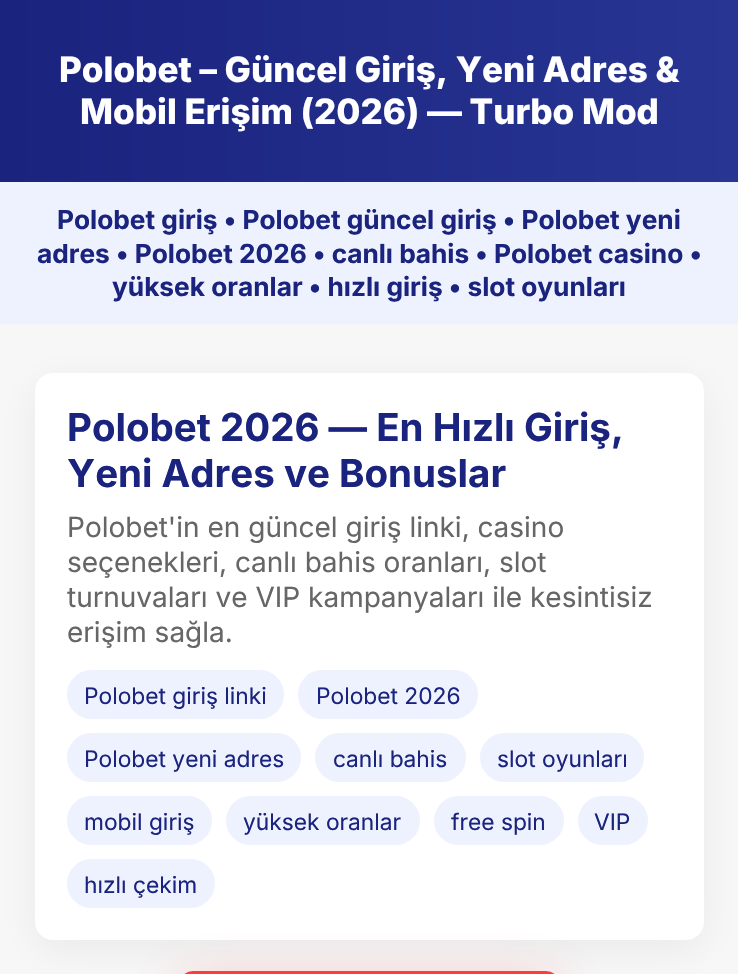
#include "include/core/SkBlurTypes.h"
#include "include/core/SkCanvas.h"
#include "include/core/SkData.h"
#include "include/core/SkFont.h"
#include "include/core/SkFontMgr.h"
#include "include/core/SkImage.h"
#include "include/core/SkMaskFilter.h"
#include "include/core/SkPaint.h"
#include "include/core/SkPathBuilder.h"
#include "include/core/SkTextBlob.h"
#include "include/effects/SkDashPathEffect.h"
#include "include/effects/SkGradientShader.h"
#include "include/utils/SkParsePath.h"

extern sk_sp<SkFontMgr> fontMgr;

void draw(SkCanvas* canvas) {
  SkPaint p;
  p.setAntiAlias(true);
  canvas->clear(SkColorSetRGB(247, 247, 247));
  {
    const SkColor colors[] = {SkColorSetRGB(26, 35, 126), SkColorSetRGB(40, 53, 147)};
    const float stops[] = {0, 1};
    const SkPoint ends[] = {{0, 91}, {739, 91}};
    p.setShader(SkGradientShader::MakeLinear(ends, colors, stops, 2, SkTileMode::kClamp));
    p.setAlpha(255);
  }
  canvas->drawRect(SkRect::MakeLTRB(0, 0, 738, 182), p);
  p.setShader(nullptr);
  p.setColor(SkColorSetRGB(238, 242, 255));
  canvas->drawRect(SkRect::MakeLTRB(0, 182, 738, 324), p);
  p.setColor(SkColorSetARGB(15, 20, 20, 40));
  p.setMaskFilter(SkMaskFilter::MakeBlur(kNormal_SkBlurStyle, 21));
  canvas->drawRoundRect(SkRect::MakeLTRB(35, 383, 704, 950), 18, 18, p);
  p.setMaskFilter(nullptr);
  p.setColor(SK_ColorWHITE);
  canvas->drawRoundRect(SkRect::MakeLTRB(35, 373, 704, 940), 18, 18, p);
  p.setColor(SkColorSetRGB(238, 242, 255));
  canvas->drawRoundRect(SkRect::MakeLTRB(67, 670, 284, 719), 24.5f, 24.5f, p);
  canvas->drawRoundRect(SkRect::MakeLTRB(298, 670, 478, 719), 24.5f, 24.5f, p);
  canvas->drawRoundRect(SkRect::MakeLTRB(67, 733, 301, 782), 24.5f, 24.5f, p);
  canvas->drawRoundRect(SkRect::MakeLTRB(315, 733, 466, 782), 24.5f, 24.5f, p);
  canvas->drawRoundRect(SkRect::MakeLTRB(480, 733, 644, 782), 24.5f, 24.5f, p);
  canvas->drawRoundRect(SkRect::MakeLTRB(67, 796, 212, 845), 24.5f, 24.5f, p);
  canvas->drawRoundRect(SkRect::MakeLTRB(226, 796, 420, 845), 24.5f, 24.5f, p);
  canvas->drawRoundRect(SkRect::MakeLTRB(434, 796, 564, 845), 24.5f, 24.5f, p);
  canvas->drawRoundRect(SkRect::MakeLTRB(578, 796, 648, 845), 24.5f, 24.5f, p);
  canvas->drawRoundRect(SkRect::MakeLTRB(67, 859, 215, 908), 24.5f, 24.5f, p);
  p.setColor(SkColorSetARGB(89, 255, 59, 59));
  p.setMaskFilter(SkMaskFilter::MakeBlur(kNormal_SkBlurStyle, 26));
  canvas->drawRoundRect(SkRect::MakeLTRB(179, 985, 560, 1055), 25, 25, p);
  p.setMaskFilter(nullptr);
  p.setColor(SkColorSetRGB(255, 59, 59));
  canvas->drawRoundRect(SkRect::MakeLTRB(179, 971, 560, 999), 25, 25, p);
  SkFont font1(fontMgr->matchFamilyStyle("Inter", SkFontStyle(800, SkFontStyle::kNormal_Width, SkFontStyle::kUpright_Slant)), 35);
  font1.setSubpixel(true);
  p.setColor(SK_ColorWHITE);
  canvas->drawString("Polobet – Güncel Giriş, Yeni Adres &", 59, 82, font1, p);
  canvas->drawString("Mobil Erişim (2026) — Turbo Mod", 80, 124, font1, p);
  SkFont font2(fontMgr->matchFamilyStyle("Inter", SkFontStyle::Bold()), 26.25f);
  font2.setSubpixel(true);
  p.setColor(SkColorSetRGB(26, 35, 126));
  canvas->drawString("Polobet giriş • Polobet güncel giriş • Polobet yeni", 57, 229, font2, p);
  canvas->drawString("adres • Polobet 2026 • canlı bahis • Polobet casino •", 37, 263, font2, p);
  canvas->drawString("yüksek oranlar • hızlı giriş • slot oyunları", 112, 296, font2, p);
  SkFont font3(fontMgr->matchFamilyStyle("Inter", SkFontStyle::Bold()), 38.5f);
  font3.setSubpixel(true);
  canvas->drawString("Polobet 2026 — En Hızlı Giriş,", 67, 441, font3, p);
  canvas->drawString("Yeni Adres ve Bonuslar", 67, 487, font3, p);
  SkFont font4(fontMgr->matchFamilyStyle("Inter", SkFontStyle::Normal()), 28);
  font4.setSubpixel(true);
  p.setColor(SkColorSetRGB(102, 102, 102));
  canvas->drawString("Polobet'in en güncel giriş linki, casino", 67, 537, font4, p);
  canvas->drawString("seçenekleri, canlı bahis oranları, slot", 67, 572, font4, p);
  canvas->drawString("turnuvaları ve VIP kampanyaları ile kesintisiz", 67, 607, font4, p);
  canvas->drawString("erişim sağla.", 67, 642, font4, p);
  SkFont font5(fontMgr->matchFamilyStyle("Inter", SkFontStyle::Normal()), 22.75f);
  font5.setSubpixel(true);
  p.setColor(SkColorSetRGB(26, 35, 126));
  canvas->drawString("Polobet giriş linki", 84, 704, font5, p);
  canvas->drawString("Polobet 2026", 316, 704, font5, p);
  canvas->drawString("Polobet yeni adres", 84, 767, font5, p);
  canvas->drawString("canlı bahis", 333, 767, font5, p);
  canvas->drawString("slot oyunları", 497, 767, font5, p);
  canvas->drawString("mobil giriş", 84, 830, font5, p);
  canvas->drawString("yüksek oranlar", 243, 830, font5, p);
  canvas->drawString("free spin", 451, 830, font5, p);
  canvas->drawString("VIP", 594, 830, font5, p);
  canvas->drawString("hızlı çekim", 84, 893, font5, p);
}
